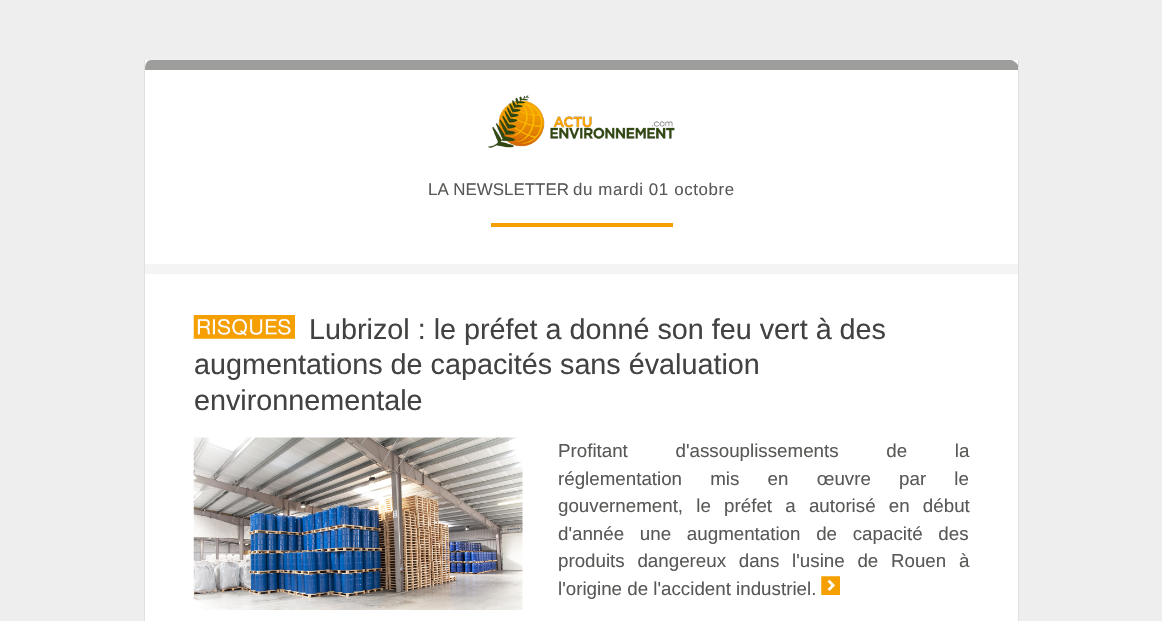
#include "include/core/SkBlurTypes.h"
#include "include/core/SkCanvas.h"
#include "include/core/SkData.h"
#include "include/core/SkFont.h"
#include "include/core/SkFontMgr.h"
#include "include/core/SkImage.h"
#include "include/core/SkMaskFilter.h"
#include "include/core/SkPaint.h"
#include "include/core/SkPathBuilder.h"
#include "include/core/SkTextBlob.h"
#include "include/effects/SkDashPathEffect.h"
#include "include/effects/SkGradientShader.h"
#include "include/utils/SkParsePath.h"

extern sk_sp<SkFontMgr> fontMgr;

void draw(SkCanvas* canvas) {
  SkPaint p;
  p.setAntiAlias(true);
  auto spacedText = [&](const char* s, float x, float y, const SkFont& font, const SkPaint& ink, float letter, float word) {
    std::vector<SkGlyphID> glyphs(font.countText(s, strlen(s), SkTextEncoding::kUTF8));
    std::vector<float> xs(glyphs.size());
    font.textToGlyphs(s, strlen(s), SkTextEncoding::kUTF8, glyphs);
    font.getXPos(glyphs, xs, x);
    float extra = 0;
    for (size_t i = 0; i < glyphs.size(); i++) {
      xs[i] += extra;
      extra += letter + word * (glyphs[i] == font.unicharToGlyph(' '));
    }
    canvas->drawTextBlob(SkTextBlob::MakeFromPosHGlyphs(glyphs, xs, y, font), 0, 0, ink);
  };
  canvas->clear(SkColorSetRGB(238, 238, 238));
  p.setColor(SK_ColorWHITE);
  canvas->drawRect(SkRect::MakeLTRB(145, 60, 1018, 621), p);
  p.setColor(SkColorSetRGB(224, 224, 224));
  canvas->drawRect(SkRect::MakeLTRB(1018, 60, 1019, 621), p);
  canvas->drawRect(SkRect::MakeLTRB(144, 60, 145, 621), p);
  p.setColor(SkColorSetRGB(157, 157, 156));
  canvas->drawPath(SkPathBuilder().moveTo(152, 60).cubicTo(146, 60, 145, 65, 145, 70).lineTo(1018, 70).lineTo(1018, 65).cubicTo(1016, 62, 1013, 60, 1010, 60).close().detach(), p);
  p.setColor(SkColorSetRGB(244, 244, 244));
  canvas->drawRect(SkRect::MakeLTRB(145, 264, 1018, 274), p);
  canvas->drawImageRect(SkImages::DeferredFromEncodedData(SkData::MakeFromFileName("images/1.png")), SkRect::MakeLTRB(487, 95, 675, 148), SkSamplingOptions());
  p.setColor(SkColorSetRGB(246, 159, 0));
  canvas->drawRect(SkRect::MakeLTRB(491, 223, 673, 227), p);
  canvas->drawImageRect(SkImages::DeferredFromEncodedData(SkData::MakeFromFileName("images/2.png")), SkRect::MakeLTRB(193, 315, 295, 339), SkSamplingOptions());
  canvas->drawImageRect(SkImages::DeferredFromEncodedData(SkData::MakeFromFileName("images/3.png")), SkRect::MakeLTRB(193, 437, 523, 610), SkSamplingOptions());
  canvas->drawImageRect(SkImages::DeferredFromEncodedData(SkData::MakeFromFileName("images/4.png")), SkRect::MakeLTRB(821, 576, 840, 595), SkSamplingOptions());
  SkFont font1(fontMgr->matchFamilyStyle("Liberation Sans", SkFontStyle::Normal()), 16.9f);
  font1.setSubpixel(true);
  p.setColor(SkColorSetRGB(88, 88, 86));
  canvas->drawString("LA NEWSLETTER", 428, 195, font1, p);
  spacedText("du mardi 01 octobre", 573, 195, font1, p, 0.6f, 0);
  SkFont font2(fontMgr->matchFamilyStyle("Liberation Sans", SkFontStyle::Normal()), 28.75f);
  font2.setSubpixel(true);
  p.setColor(SkColorSetRGB(66, 66, 65));
  canvas->drawString("Lubrizol : le préfet a donné son feu vert à des", 309, 339, font2, p);
  canvas->drawString("augmentations de capacités sans évaluation", 194, 374, font2, p);
  canvas->drawString("environnementale", 194, 410, font2, p);
  SkFont font3(fontMgr->matchFamilyStyle("Liberation Sans", SkFontStyle::Normal()), 18.75f);
  font3.setSubpixel(true);
  p.setColor(SkColorSetRGB(88, 88, 86));
  spacedText("Profitant d'assouplissements de la", 558, 457, font3, p, 0, 42.5f);
  spacedText("réglementation mis en œuvre par le", 558, 485, font3, p, 0, 23);
  spacedText("gouvernement, le préfet a autorisé en début", 558, 512, font3, p, 0, 8);
  spacedText("d'année une augmentation de capacité des", 558, 540, font3, p, 0, 10.5f);
  spacedText("produits dangereux dans l'usine de Rouen à", 558, 567, font3, p, 0, 7.5f);
  canvas->drawString("l'origine de l'accident industriel.", 558, 595, font3, p);
}
